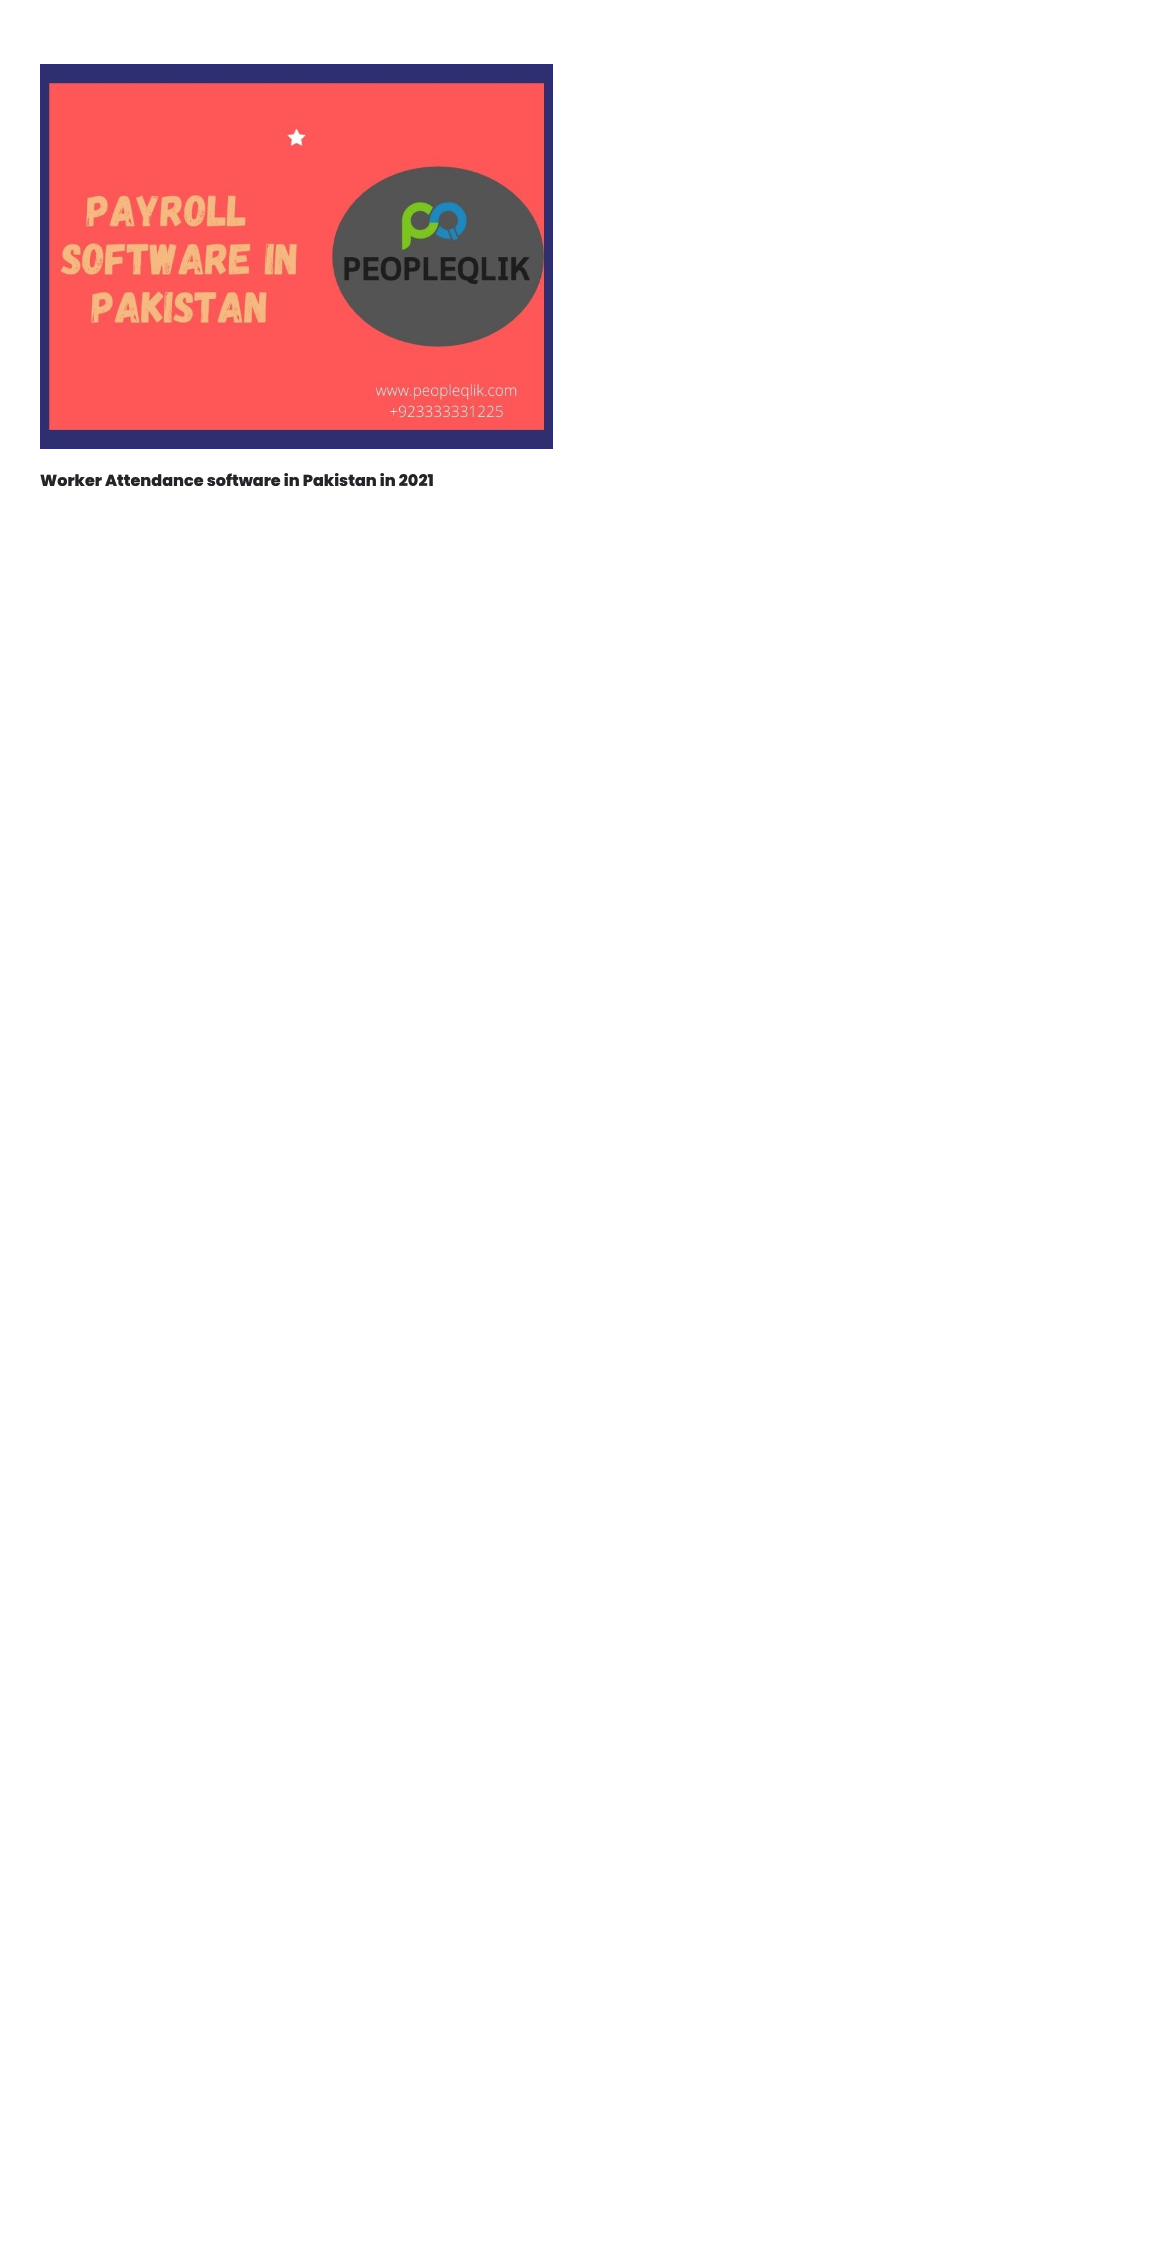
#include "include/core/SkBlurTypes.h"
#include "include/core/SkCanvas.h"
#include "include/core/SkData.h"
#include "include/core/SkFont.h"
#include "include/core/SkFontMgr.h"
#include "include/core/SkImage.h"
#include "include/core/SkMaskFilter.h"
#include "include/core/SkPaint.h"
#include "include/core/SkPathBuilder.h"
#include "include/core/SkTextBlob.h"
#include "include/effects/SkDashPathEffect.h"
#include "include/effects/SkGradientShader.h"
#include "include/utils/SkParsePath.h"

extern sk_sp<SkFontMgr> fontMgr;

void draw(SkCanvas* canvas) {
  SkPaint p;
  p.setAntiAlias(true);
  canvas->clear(SK_ColorWHITE);
  canvas->drawImageRect(SkImages::DeferredFromEncodedData(SkData::MakeFromFileName("images/1.png")), SkRect::MakeLTRB(40, 64, 553, 449), SkSamplingOptions());
  SkFont font1(fontMgr->matchFamilyStyle("Poppins", SkFontStyle(800, SkFontStyle::kNormal_Width, SkFontStyle::kUpright_Slant)), 16);
  font1.setSubpixel(true);
  p.setColor(SkColorSetRGB(35, 37, 41));
  canvas->drawString("Worker Attendance software in Pakistan in 2021", 40, 486, font1, p);
}
